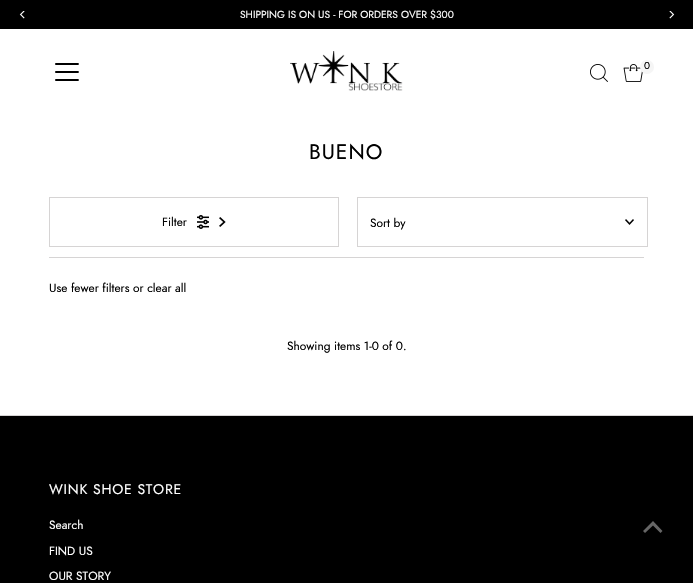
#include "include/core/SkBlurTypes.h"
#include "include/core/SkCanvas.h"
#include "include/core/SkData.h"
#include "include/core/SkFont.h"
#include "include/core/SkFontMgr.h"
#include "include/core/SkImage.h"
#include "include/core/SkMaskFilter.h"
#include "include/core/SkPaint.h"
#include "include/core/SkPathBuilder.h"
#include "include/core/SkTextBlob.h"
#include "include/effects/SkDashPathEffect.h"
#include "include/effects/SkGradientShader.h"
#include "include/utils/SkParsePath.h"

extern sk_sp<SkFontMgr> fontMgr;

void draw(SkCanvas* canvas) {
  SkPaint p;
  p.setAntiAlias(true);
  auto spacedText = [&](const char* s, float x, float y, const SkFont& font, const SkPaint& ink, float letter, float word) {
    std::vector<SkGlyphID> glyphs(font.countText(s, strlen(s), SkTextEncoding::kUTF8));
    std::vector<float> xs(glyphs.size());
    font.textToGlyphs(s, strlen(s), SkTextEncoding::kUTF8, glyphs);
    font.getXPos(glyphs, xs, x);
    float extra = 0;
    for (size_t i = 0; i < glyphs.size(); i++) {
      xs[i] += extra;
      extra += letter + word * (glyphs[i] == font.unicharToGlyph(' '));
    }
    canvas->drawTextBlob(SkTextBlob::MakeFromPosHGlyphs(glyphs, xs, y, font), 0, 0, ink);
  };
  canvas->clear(SK_ColorWHITE);
  p.setColor(SK_ColorBLACK);
  canvas->drawRect(SkRect::MakeLTRB(0, 0, 693, 29), p);
  canvas->drawImageRect(SkImages::DeferredFromEncodedData(SkData::MakeFromFileName("images/1.png")), SkRect::MakeLTRB(19, 11, 25, 19), SkSamplingOptions());
  canvas->drawImageRect(SkImages::DeferredFromEncodedData(SkData::MakeFromFileName("images/2.png")), SkRect::MakeLTRB(669, 11, 675, 19), SkSamplingOptions());
  canvas->drawImageRect(SkImages::DeferredFromEncodedData(SkData::MakeFromFileName("images/3.png")), SkRect::MakeLTRB(55, 63, 79, 81), SkSamplingOptions());
  canvas->drawImageRect(SkImages::DeferredFromEncodedData(SkData::MakeFromFileName("images/4.png")), SkRect::MakeLTRB(290, 51, 403, 91), SkSamplingOptions());
  canvas->drawImageRect(SkImages::DeferredFromEncodedData(SkData::MakeFromFileName("images/5.png")), SkRect::MakeLTRB(590, 64, 608, 82), SkSamplingOptions());
  canvas->drawImageRect(SkImages::DeferredFromEncodedData(SkData::MakeFromFileName("images/6.png")), SkRect::MakeLTRB(623, 64, 643, 82), SkSamplingOptions());
  p.setColor(SkColorSetRGB(245, 245, 245));
  canvas->drawCircle(647, 67, 7, p);
  p.setColor(SkColorSetRGB(214, 212, 212));
  canvas->drawRect(SkRect::MakeLTRB(49, 257, 644, 258), p);
  p.setStyle(SkPaint::kStroke_Style);
  p.setStrokeWidth(1);
  canvas->drawRect(SkRect::MakeLTRB(49.5f, 197.5f, 338.5f, 246.5f), p);
  canvas->drawImageRect(SkImages::DeferredFromEncodedData(SkData::MakeFromFileName("images/7.png")), SkRect::MakeLTRB(197, 215, 209, 229), SkSamplingOptions());
  canvas->drawImageRect(SkImages::DeferredFromEncodedData(SkData::MakeFromFileName("images/8.png")), SkRect::MakeLTRB(219, 217, 226, 227), SkSamplingOptions());
  canvas->drawRect(SkRect::MakeLTRB(357.5f, 197.5f, 647.5f, 246.5f), p);
  canvas->drawImageRect(SkImages::DeferredFromEncodedData(SkData::MakeFromFileName("images/9.png")), SkRect::MakeLTRB(625, 219, 634, 225), SkSamplingOptions());
  p.setStyle(SkPaint::kFill_Style);
  p.setColor(SK_ColorBLACK);
  canvas->drawRect(SkRect::MakeLTRB(0, 416, 693, 583), p);
  p.setColor(SkColorSetRGB(214, 212, 212));
  canvas->drawRect(SkRect::MakeLTRB(0, 415, 693, 416), p);
  p.setColor(SkColorSetRGB(102, 102, 102));
  canvas->drawPath(SkPathBuilder().moveTo(653, 521).lineTo(643, 531).lineTo(645, 533).lineTo(653, 525.5f).lineTo(660.5f, 533).lineTo(662.5f, 531).close().detach(), p);
  SkFont font1(fontMgr->matchFamilyStyle("Jost", SkFontStyle::Normal()), 10.2f);
  font1.setSubpixel(true);
  p.setColor(SK_ColorWHITE);
  canvas->drawString("SHIPPING IS ON US - FOR ORDERS OVER $300", 240, 18, font1, p);
  SkFont font2(fontMgr->matchFamilyStyle("Jost", SkFontStyle::Normal()), 10);
  font2.setSubpixel(true);
  p.setColor(SK_ColorBLACK);
  canvas->drawString("0", 644, 69, font2, p);
  SkFont font3(fontMgr->matchFamilyStyle("Jost", SkFontStyle::Normal()), 21);
  font3.setSubpixel(true);
  spacedText("BUENO", 309, 159, font3, p, 1, 0);
  SkFont font4(fontMgr->matchFamilyStyle("Jost", SkFontStyle::Normal()), 11.9f);
  font4.setSubpixel(true);
  canvas->drawString("Filter", 162, 226, font4, p);
  canvas->drawString("Sort by", 370, 227, font4, p);
  canvas->drawString("Use fewer filters or clear all", 49, 292, font4, p);
  canvas->drawString("Showing items 1-0 of 0.", 287, 350, font4, p);
  SkFont font5(fontMgr->matchFamilyStyle("Jost", SkFontStyle::Normal()), 14);
  font5.setSubpixel(true);
  p.setColor(SK_ColorWHITE);
  spacedText("WINK SHOE STORE", 49, 494, font5, p, 0.75f, 0);
  canvas->drawString("Search", 49, 529, font4, p);
  canvas->drawString("FIND US", 49, 555, font4, p);
  canvas->drawString("OUR STORY", 49, 580, font4, p);
}
